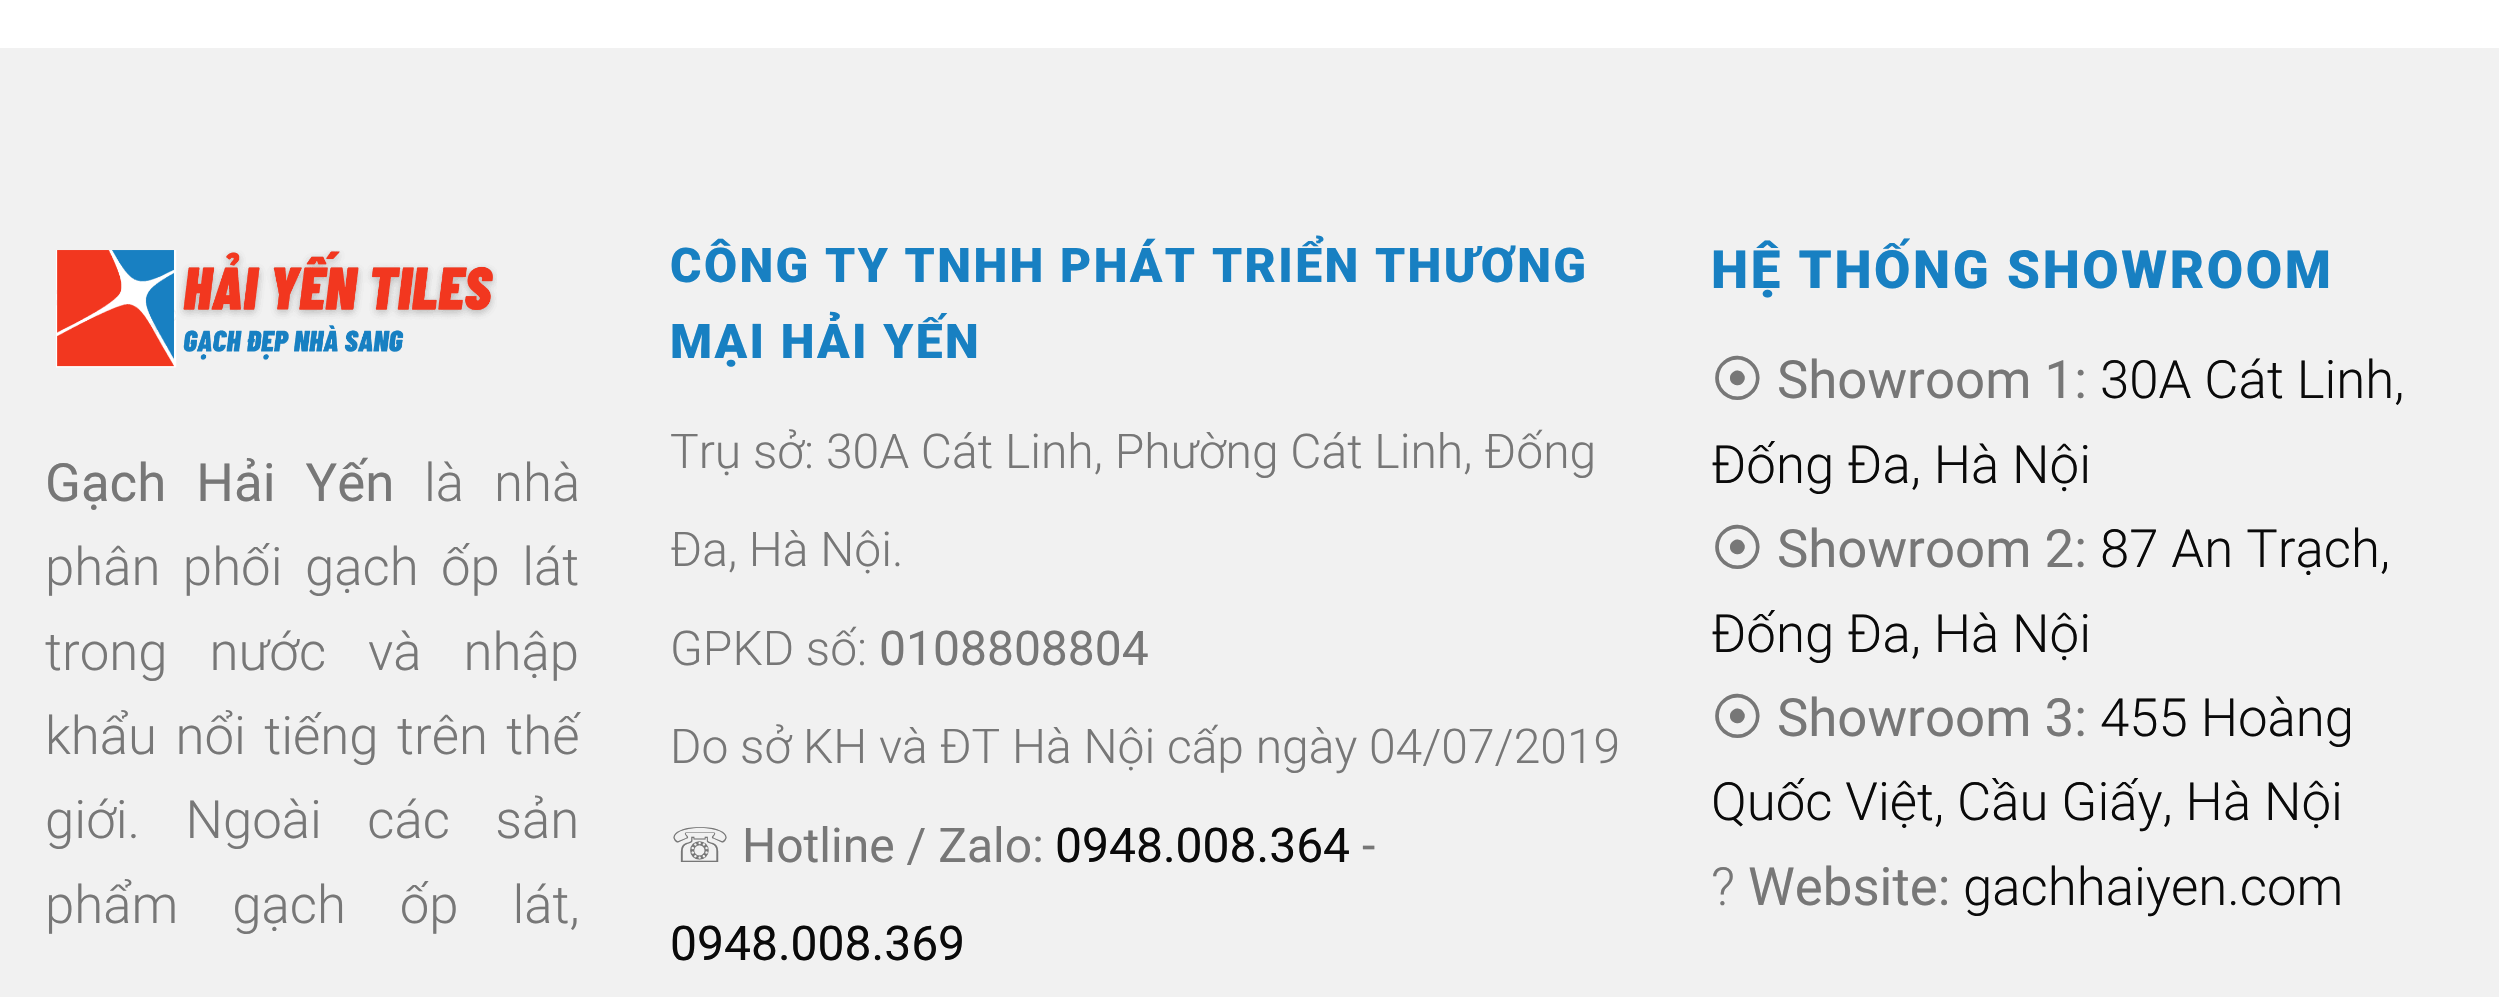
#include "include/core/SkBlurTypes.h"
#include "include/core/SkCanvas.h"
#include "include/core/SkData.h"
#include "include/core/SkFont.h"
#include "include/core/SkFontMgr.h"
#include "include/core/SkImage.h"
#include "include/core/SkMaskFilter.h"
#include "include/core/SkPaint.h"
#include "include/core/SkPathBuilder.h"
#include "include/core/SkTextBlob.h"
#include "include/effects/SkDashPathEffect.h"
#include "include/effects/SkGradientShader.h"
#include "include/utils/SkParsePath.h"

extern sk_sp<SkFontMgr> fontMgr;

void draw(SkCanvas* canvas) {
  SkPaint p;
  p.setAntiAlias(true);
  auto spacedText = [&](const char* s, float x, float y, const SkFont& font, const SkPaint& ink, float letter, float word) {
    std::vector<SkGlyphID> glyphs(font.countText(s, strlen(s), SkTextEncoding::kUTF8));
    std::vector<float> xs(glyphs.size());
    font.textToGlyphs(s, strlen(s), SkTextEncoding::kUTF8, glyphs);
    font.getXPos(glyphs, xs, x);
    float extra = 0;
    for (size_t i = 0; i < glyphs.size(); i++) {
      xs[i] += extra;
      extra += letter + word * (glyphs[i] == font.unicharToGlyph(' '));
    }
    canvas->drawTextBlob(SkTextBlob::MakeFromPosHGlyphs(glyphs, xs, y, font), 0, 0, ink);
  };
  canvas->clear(SK_ColorWHITE);
  p.setColor(SkColorSetRGB(241, 241, 241));
  canvas->drawRect(SkRect::MakeLTRB(0, 48, 2499, 997), p);
  canvas->drawImageRect(SkImages::DeferredFromEncodedData(SkData::MakeFromFileName("images/1.png")), SkRect::MakeLTRB(56, 250, 497, 368), SkSamplingOptions());
  SkFont font1(fontMgr->matchFamilyStyle("Roboto", SkFontStyle::Normal()), 52.75f);
  font1.setSubpixel(true);
  p.setColor(SkColorSetRGB(119, 119, 119));
  spacedText("Gạch Hải Yến", 45, 501, font1, p, 0, 17);
  SkFont font2(fontMgr->matchFamilyStyle("Roboto", SkFontStyle(300, SkFontStyle::kNormal_Width, SkFontStyle::kUpright_Slant)), 52.75f);
  font2.setSubpixel(true);
  spacedText("là nhà", 424, 501, font2, p, 0, 17);
  spacedText("phân phối gạch ốp lát", 45, 585, font2, p, 0, 9.5f);
  spacedText("trong nước và nhập", 45, 670, font2, p, 0, 29);
  spacedText("khẩu nổi tiếng trên thế", 45, 754, font2, p, 0, 5.5f);
  spacedText("giới. Ngoài các sản", 45, 838, font2, p, 0, 32.5f);
  spacedText("phẩm gạch ốp lát,", 45, 923, font2, p, 0, 41);
  SkFont font3(fontMgr->matchFamilyStyle("Roboto", SkFontStyle(900, SkFontStyle::kNormal_Width, SkFontStyle::kUpright_Slant)), 48);
  font3.setSubpixel(true);
  p.setColor(SkColorSetRGB(24, 128, 194));
  spacedText("CÔNG TY TNHH PHÁT TRIỂN THƯƠNG", 670, 282, font3, p, 2.4f, 0);
  spacedText("MẠI HẢI YẾN", 670, 358, font3, p, 2.4f, 0);
  SkFont font4(fontMgr->matchFamilyStyle("Roboto", SkFontStyle(300, SkFontStyle::kNormal_Width, SkFontStyle::kUpright_Slant)), 48);
  font4.setSubpixel(true);
  p.setColor(SkColorSetRGB(119, 119, 119));
  canvas->drawString("Trụ sở: 30A Cát Linh, Phường Cát Linh, Đống", 670, 468, font4, p);
  canvas->drawString("Đa, Hà Nội.", 670, 566, font4, p);
  canvas->drawString("GPKD số:", 670, 665, font4, p);
  SkFont font5(fontMgr->matchFamilyStyle("Roboto", SkFontStyle::Normal()), 48);
  font5.setSubpixel(true);
  canvas->drawString("0108808804", 879, 665, font5, p);
  canvas->drawString("Do sở KH và ĐT Hà Nội cấp ngày 04/07/2019", 670, 763, font4, p);
  SkFont font6(fontMgr->matchFamilyStyle("DejaVu Sans", SkFontStyle::Normal()), 48);
  font6.setSubpixel(true);
  canvas->drawString("☏", 670, 862, font6, p);
  canvas->drawString("Hotline / Zalo:", 742, 862, font5, p);
  p.setColor(SkColorSetRGB(10, 10, 10));
  canvas->drawString("0948.008.364", 1055, 862, font5, p);
  p.setColor(SkColorSetRGB(119, 119, 119));
  canvas->drawString("-", 1362, 862, font5, p);
  p.setColor(SkColorSetRGB(10, 10, 10));
  canvas->drawString("0948.008.369", 670, 960, font5, p);
  SkFont font7(fontMgr->matchFamilyStyle("Roboto", SkFontStyle(900, SkFontStyle::kNormal_Width, SkFontStyle::kUpright_Slant)), 52.75f);
  font7.setSubpixel(true);
  p.setColor(SkColorSetRGB(24, 128, 194));
  spacedText("HỆ THỐNG SHOWROOM", 1711, 288, font7, p, 2.6f, 0);
  SkFont font8(fontMgr->matchFamilyStyle("IPAGothic", SkFontStyle::Normal()), 52.75f);
  font8.setSubpixel(true);
  p.setColor(SkColorSetRGB(119, 119, 119));
  canvas->drawString("⦿", 1711, 398, font8, p);
  canvas->drawString("Showroom 1:", 1777, 398, font1, p);
  p.setColor(SkColorSetRGB(10, 10, 10));
  canvas->drawString("30A Cát Linh,", 2100, 398, font2, p);
  canvas->drawString("Đống Đa, Hà Nội", 1711, 483, font2, p);
  p.setColor(SkColorSetRGB(119, 119, 119));
  canvas->drawString("⦿", 1711, 567, font8, p);
  canvas->drawString("Showroom 2:", 1777, 567, font1, p);
  p.setColor(SkColorSetRGB(10, 10, 10));
  canvas->drawString("87 An Trạch,", 2100, 567, font2, p);
  canvas->drawString("Đống Đa, Hà Nội", 1711, 652, font2, p);
  p.setColor(SkColorSetRGB(119, 119, 119));
  canvas->drawString("⦿", 1711, 736, font8, p);
  canvas->drawString("Showroom 3:", 1777, 736, font1, p);
  p.setColor(SkColorSetRGB(10, 10, 10));
  canvas->drawString("455 Hoàng", 2100, 736, font2, p);
  canvas->drawString("Quốc Việt, Cầu Giấy, Hà Nội", 1711, 820, font2, p);
  p.setColor(SkColorSetRGB(119, 119, 119));
  canvas->drawString("?", 1711, 905, font2, p);
  canvas->drawString("Website:", 1748, 905, font1, p);
  p.setColor(SkColorSetRGB(10, 10, 10));
  canvas->drawString("gachhaiyen.com", 1963, 905, font2, p);
}
